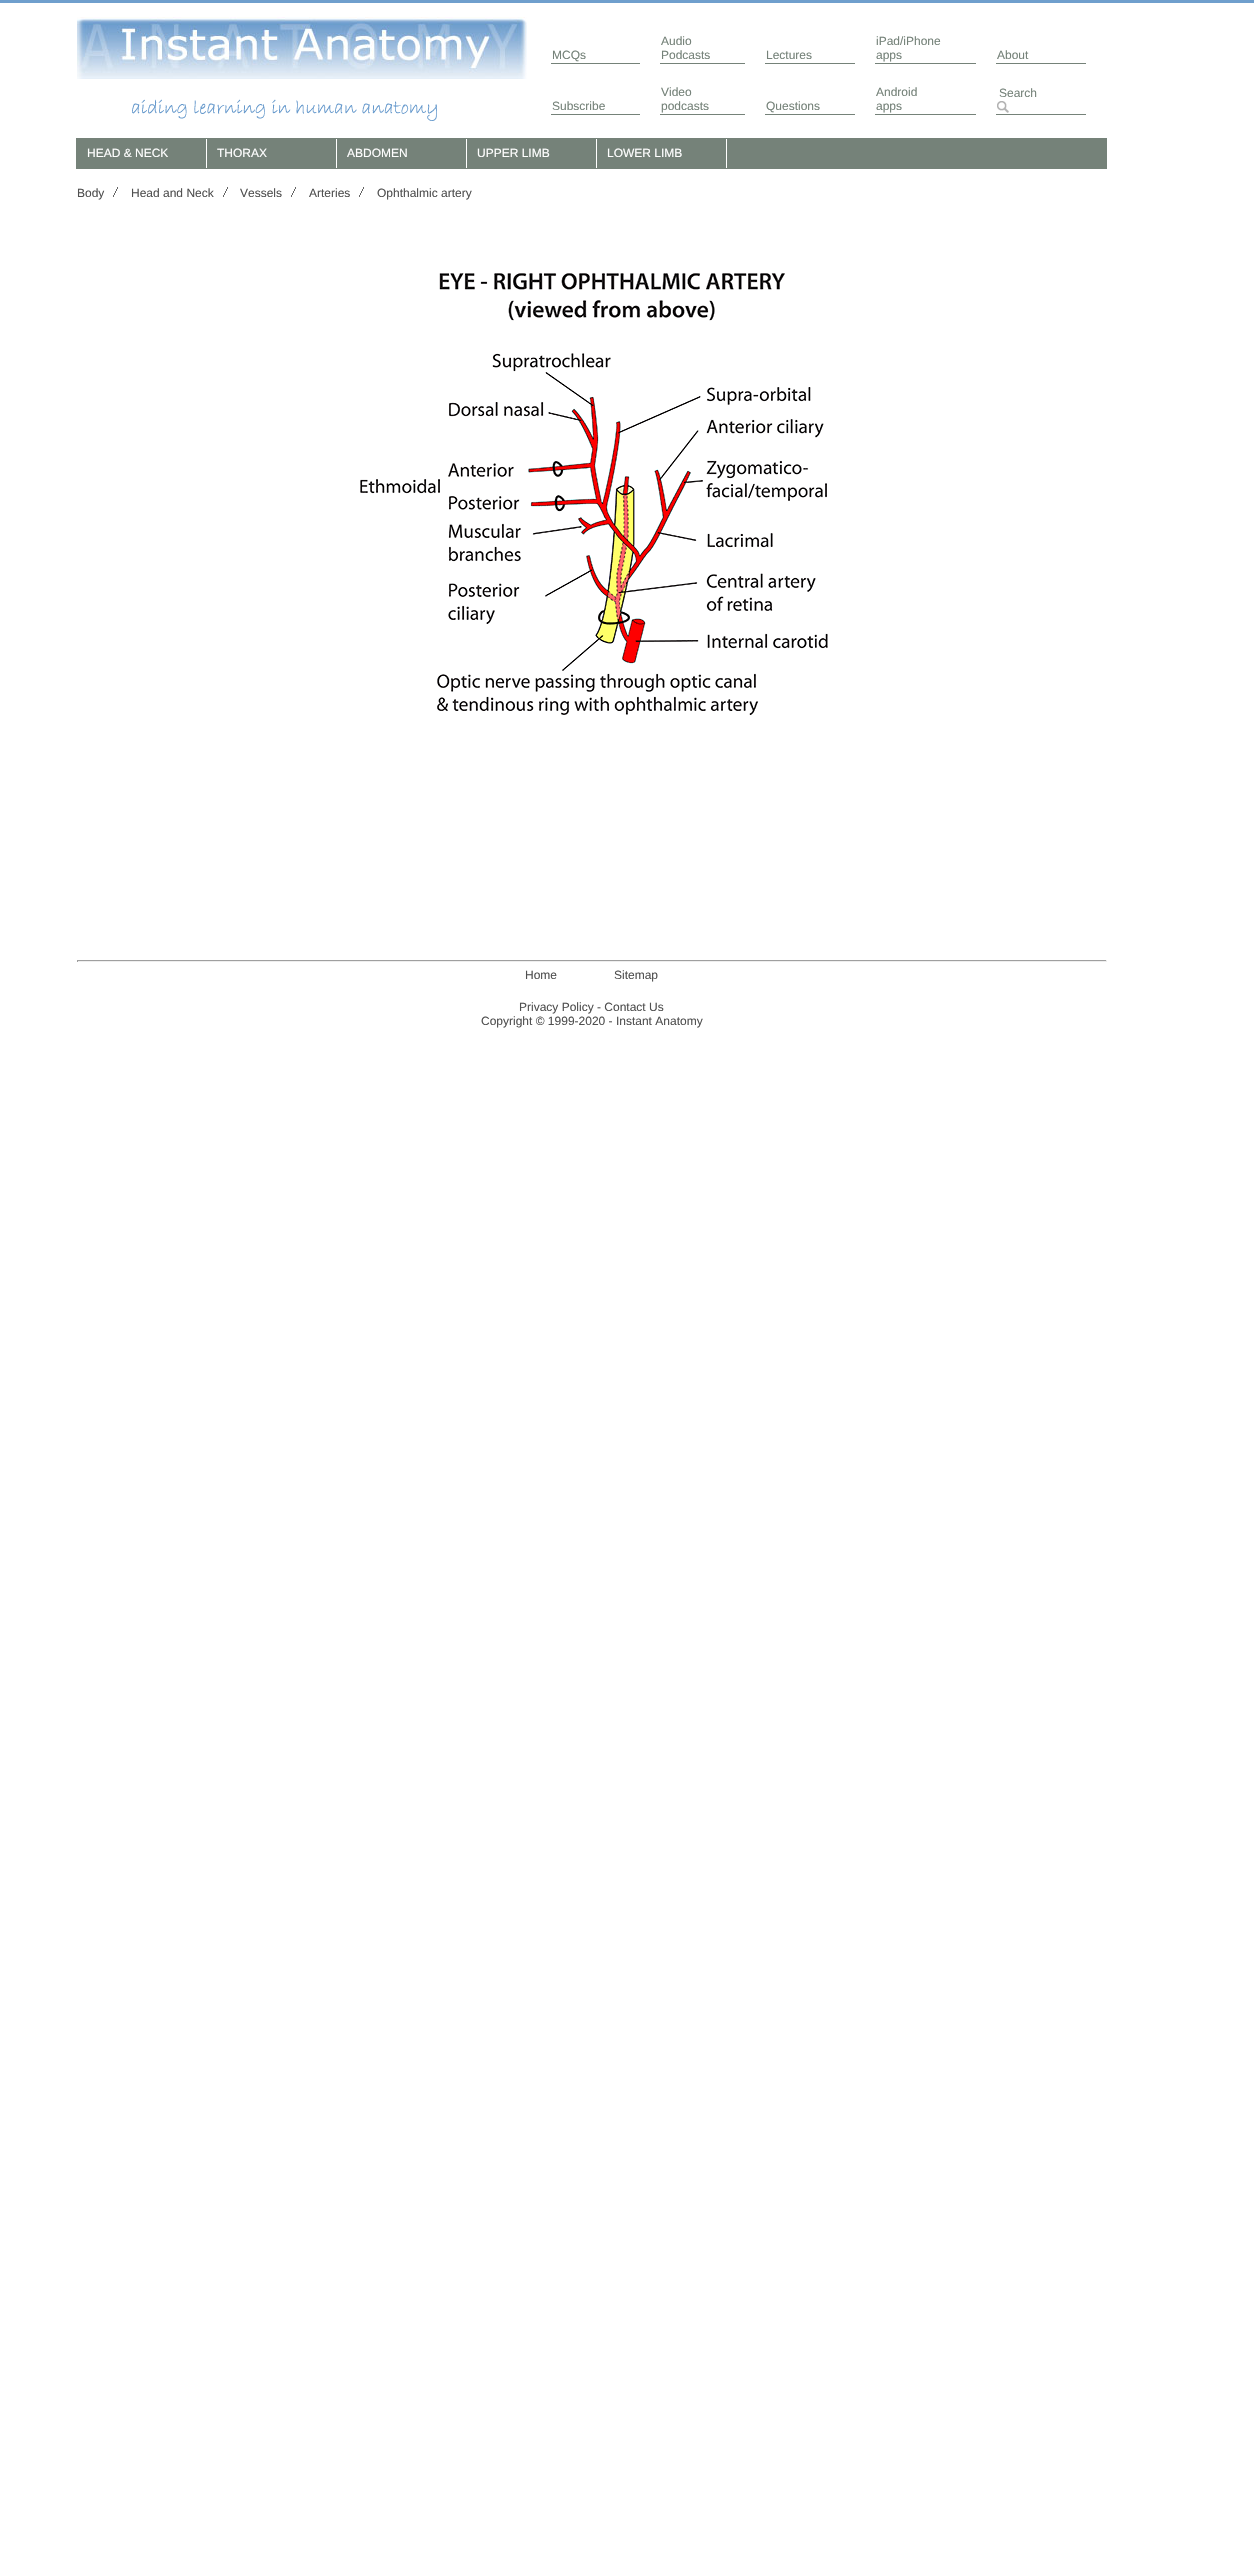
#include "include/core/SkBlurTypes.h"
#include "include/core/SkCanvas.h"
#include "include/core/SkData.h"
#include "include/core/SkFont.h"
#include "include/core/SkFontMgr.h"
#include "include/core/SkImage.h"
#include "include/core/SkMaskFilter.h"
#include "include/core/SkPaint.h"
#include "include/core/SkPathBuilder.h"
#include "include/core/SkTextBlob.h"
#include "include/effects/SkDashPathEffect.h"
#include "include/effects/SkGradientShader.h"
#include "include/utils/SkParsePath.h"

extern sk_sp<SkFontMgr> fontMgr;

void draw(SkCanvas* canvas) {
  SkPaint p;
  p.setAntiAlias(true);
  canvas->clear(SK_ColorWHITE);
  p.setColor(SkColorSetRGB(111, 159, 205));
  canvas->drawRect(SkRect::MakeLTRB(0, 0, 1254, 3), p);
  canvas->drawImageRect(SkImages::DeferredFromEncodedData(SkData::MakeFromFileName("images/1.png")), SkRect::MakeLTRB(132, 99, 437, 121), SkSamplingOptions());
  canvas->drawImageRect(SkImages::DeferredFromEncodedData(SkData::MakeFromFileName("images/2.png")), SkRect::MakeLTRB(77, 17, 527, 79), SkSamplingOptions());
  p.setColor(SkColorSetRGB(117, 130, 121));
  canvas->drawRect(SkRect::MakeLTRB(551, 63, 640, 64), p);
  canvas->drawRect(SkRect::MakeLTRB(660, 63, 745, 64), p);
  canvas->drawRect(SkRect::MakeLTRB(765, 63, 855, 64), p);
  canvas->drawRect(SkRect::MakeLTRB(875, 63, 976, 64), p);
  canvas->drawRect(SkRect::MakeLTRB(996, 63, 1086, 64), p);
  canvas->drawRect(SkRect::MakeLTRB(660, 114, 745, 115), p);
  canvas->drawRect(SkRect::MakeLTRB(875, 114, 976, 115), p);
  canvas->drawRect(SkRect::MakeLTRB(996, 114, 1086, 115), p);
  canvas->drawImageRect(SkImages::DeferredFromEncodedData(SkData::MakeFromFileName("images/3.png")), SkRect::MakeLTRB(997, 101, 1009, 113), SkSamplingOptions());
  canvas->drawRect(SkRect::MakeLTRB(551, 114, 640, 115), p);
  canvas->drawRect(SkRect::MakeLTRB(765, 114, 855, 115), p);
  canvas->drawRect(SkRect::MakeLTRB(76, 138, 1107, 169), p);
  p.setColor(SK_ColorWHITE);
  canvas->drawRect(SkRect::MakeLTRB(206, 139, 207, 168), p);
  canvas->drawRect(SkRect::MakeLTRB(336, 139, 337, 168), p);
  canvas->drawRect(SkRect::MakeLTRB(466, 139, 467, 168), p);
  canvas->drawRect(SkRect::MakeLTRB(596, 139, 597, 168), p);
  canvas->drawRect(SkRect::MakeLTRB(726, 139, 727, 168), p);
  canvas->drawImageRect(SkImages::DeferredFromEncodedData(SkData::MakeFromFileName("images/4.png")), SkRect::MakeLTRB(113, 187, 118, 197), SkSamplingOptions());
  canvas->drawImageRect(SkImages::DeferredFromEncodedData(SkData::MakeFromFileName("images/4.png")), SkRect::MakeLTRB(223, 187, 228, 197), SkSamplingOptions());
  canvas->drawImageRect(SkImages::DeferredFromEncodedData(SkData::MakeFromFileName("images/4.png")), SkRect::MakeLTRB(291, 187, 296, 197), SkSamplingOptions());
  canvas->drawImageRect(SkImages::DeferredFromEncodedData(SkData::MakeFromFileName("images/4.png")), SkRect::MakeLTRB(359, 187, 364, 197), SkSamplingOptions());
  canvas->drawImageRect(SkImages::DeferredFromEncodedData(SkData::MakeFromFileName("images/5.png")), SkRect::MakeLTRB(360, 273, 828, 716), SkSamplingOptions());
  p.setColor(SkColorSetRGB(159, 159, 159));
  canvas->drawRect(SkRect::MakeLTRB(77, 960, 1107, 961), p);
  p.setColor(SkColorSetRGB(238, 238, 238));
  canvas->drawRect(SkRect::MakeLTRB(1106, 960, 1107, 962), p);
  canvas->drawRect(SkRect::MakeLTRB(77, 961, 1107, 962), p);
  p.setColor(SkColorSetRGB(159, 159, 159));
  canvas->drawRect(SkRect::MakeLTRB(77, 960, 78, 962), p);
  SkFont font1(fontMgr->matchFamilyStyle("Liberation Sans", SkFontStyle::Normal()), 12);
  font1.setSubpixel(true);
  p.setColor(SkColorSetRGB(117, 130, 121));
  canvas->drawString("MCQs", 552, 59, font1, p);
  canvas->drawString("Audio", 661, 45, font1, p);
  canvas->drawString("Podcasts", 661, 59, font1, p);
  canvas->drawString("Lectures", 766, 59, font1, p);
  canvas->drawString("iPad/iPhone", 876, 45, font1, p);
  canvas->drawString("apps", 876, 59, font1, p);
  canvas->drawString("About", 997, 59, font1, p);
  canvas->drawString("Video", 661, 96, font1, p);
  canvas->drawString("podcasts", 661, 110, font1, p);
  canvas->drawString("Android", 876, 96, font1, p);
  canvas->drawString("apps", 876, 110, font1, p);
  canvas->drawString("Search", 999, 97, font1, p);
  canvas->drawString("Subscribe", 552, 110, font1, p);
  canvas->drawString("Questions", 766, 110, font1, p);
  p.setColor(SK_ColorWHITE);
  canvas->drawString("HEAD & NECK", 87, 157, font1, p);
  canvas->drawString("THORAX", 217, 157, font1, p);
  canvas->drawString("ABDOMEN", 347, 157, font1, p);
  canvas->drawString("UPPER LIMB", 477, 157, font1, p);
  canvas->drawString("LOWER LIMB", 607, 157, font1, p);
  p.setColor(SkColorSetRGB(80, 80, 80));
  canvas->drawString("Body", 77, 197, font1, p);
  canvas->drawString("Head and Neck", 131, 197, font1, p);
  canvas->drawString("Vessels", 240, 197, font1, p);
  canvas->drawString("Arteries", 309, 197, font1, p);
  canvas->drawString("Ophthalmic artery", 377, 197, font1, p);
  canvas->drawString("Home", 525, 979, font1, p);
  canvas->drawString("Sitemap", 614, 979, font1, p);
  canvas->drawString("Privacy Policy - Contact Us", 519, 1011, font1, p);
  canvas->drawString("Copyright © 1999-2020 - Instant Anatomy", 481, 1025, font1, p);
}
